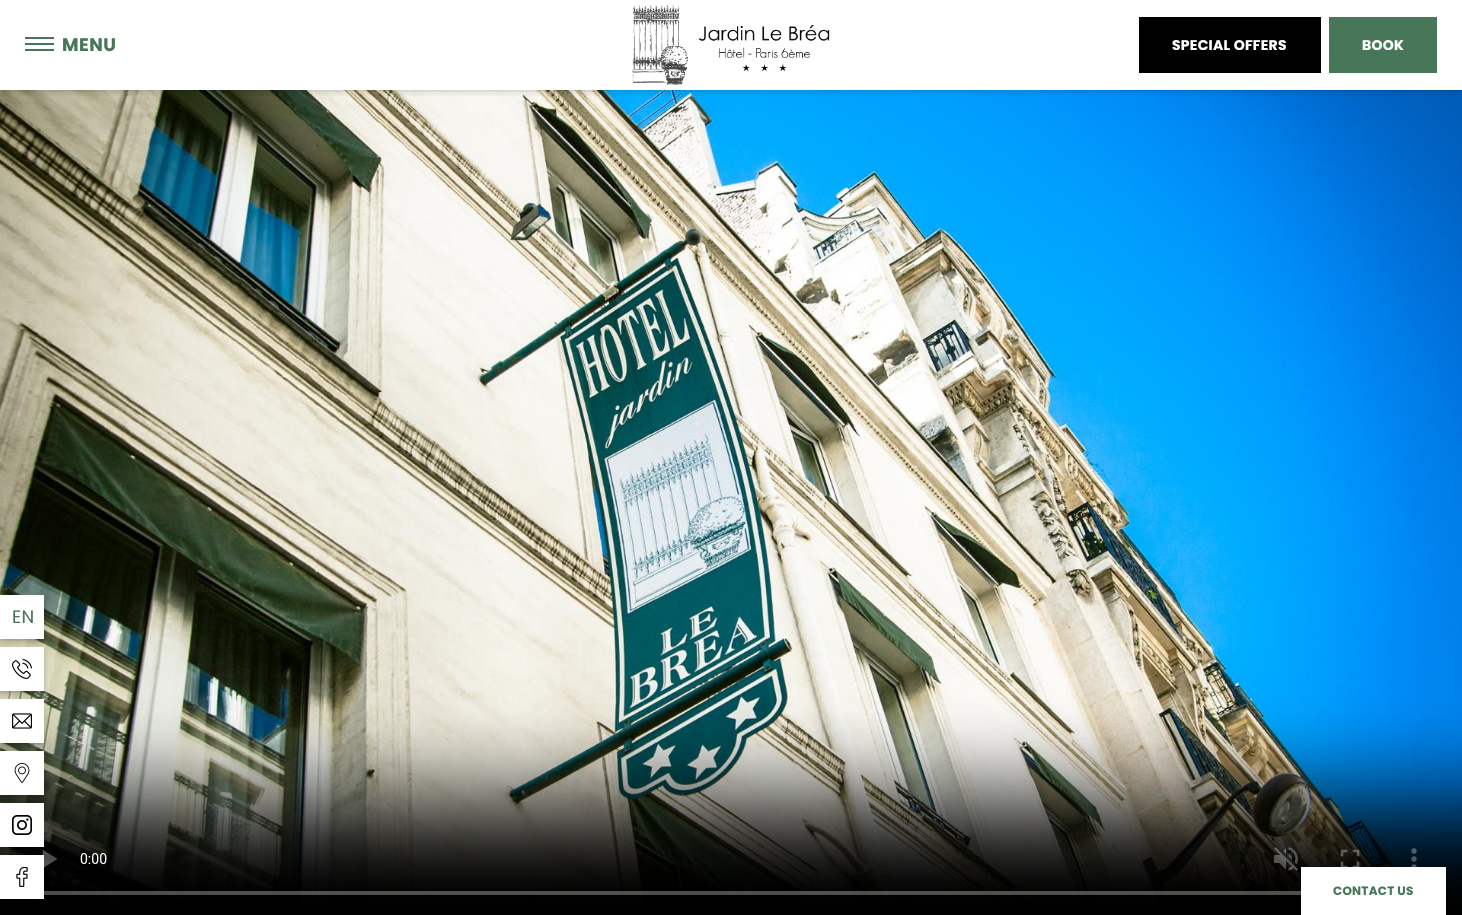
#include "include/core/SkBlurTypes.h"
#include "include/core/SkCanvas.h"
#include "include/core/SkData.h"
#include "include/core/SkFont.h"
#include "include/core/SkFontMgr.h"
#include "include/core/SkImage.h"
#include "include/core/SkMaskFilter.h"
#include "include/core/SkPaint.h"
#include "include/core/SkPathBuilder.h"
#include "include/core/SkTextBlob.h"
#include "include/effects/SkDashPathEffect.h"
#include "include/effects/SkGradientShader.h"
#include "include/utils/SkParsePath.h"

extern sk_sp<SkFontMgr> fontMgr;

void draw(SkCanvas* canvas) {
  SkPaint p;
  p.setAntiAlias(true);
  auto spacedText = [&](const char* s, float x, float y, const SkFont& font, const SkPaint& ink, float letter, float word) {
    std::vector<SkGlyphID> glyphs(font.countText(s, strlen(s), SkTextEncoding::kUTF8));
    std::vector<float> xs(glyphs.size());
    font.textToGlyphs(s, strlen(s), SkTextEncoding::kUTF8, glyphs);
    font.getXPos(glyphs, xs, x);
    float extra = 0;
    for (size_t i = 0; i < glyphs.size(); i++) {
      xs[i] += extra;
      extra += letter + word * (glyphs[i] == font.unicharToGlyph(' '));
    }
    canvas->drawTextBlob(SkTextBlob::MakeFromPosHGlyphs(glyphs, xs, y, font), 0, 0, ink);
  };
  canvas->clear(SK_ColorWHITE);
  canvas->drawImageRect(SkImages::DeferredFromEncodedData(SkData::MakeFromFileName("images/2.png")), SkRect::MakeLTRB(0, 90, 1462, 915), SkSamplingOptions());
  canvas->save();
  canvas->clipRect(SkRect::MakeLTRB(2, 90, 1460, 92));
  p.setColor(SkColorSetARGB(26, 0, 0, 0));
  p.setMaskFilter(SkMaskFilter::MakeBlur(kNormal_SkBlurStyle, 2));
  canvas->drawRect(SkRect::MakeLTRB(2, 4, 1460, 90), p);
  p.setMaskFilter(nullptr);
  canvas->restore();
  canvas->save();
  canvas->clipRect(SkRect::MakeLTRB(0, 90, 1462, 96));
  p.setMaskFilter(SkMaskFilter::MakeBlur(kNormal_SkBlurStyle, 3));
  canvas->drawRect(SkRect::MakeLTRB(1, 5, 1461, 93), p);
  p.setMaskFilter(nullptr);
  canvas->restore();
  p.setColor(SkColorSetRGB(71, 118, 88));
  canvas->drawRect(SkRect::MakeLTRB(25, 37, 54, 39), p);
  canvas->drawRect(SkRect::MakeLTRB(25, 43, 54, 45), p);
  canvas->drawRect(SkRect::MakeLTRB(25, 49, 54, 51), p);
  canvas->drawImageRect(SkImages::DeferredFromEncodedData(SkData::MakeFromFileName("images/1.png")), SkRect::MakeLTRB(632, 5, 830, 85), SkSamplingOptions());
  p.setColor(SK_ColorBLACK);
  canvas->drawRect(SkRect::MakeLTRB(1139, 17, 1321, 73), p);
  p.setColor(SkColorSetRGB(71, 118, 88));
  canvas->drawRect(SkRect::MakeLTRB(1329, 17, 1437, 73), p);
  p.setColor(SkColorSetARGB(26, 0, 0, 0));
  p.setMaskFilter(SkMaskFilter::MakeBlur(kNormal_SkBlurStyle, 2));
  canvas->drawRect(SkRect::MakeLTRB(2, 599, 42, 639), p);
  p.setMaskFilter(nullptr);
  p.setMaskFilter(SkMaskFilter::MakeBlur(kNormal_SkBlurStyle, 3));
  canvas->drawRect(SkRect::MakeLTRB(1, 600, 43, 642), p);
  p.setMaskFilter(nullptr);
  p.setMaskFilter(SkMaskFilter::MakeBlur(kNormal_SkBlurStyle, 2));
  canvas->drawRect(SkRect::MakeLTRB(2, 599, 42, 639), p);
  p.setMaskFilter(nullptr);
  p.setMaskFilter(SkMaskFilter::MakeBlur(kNormal_SkBlurStyle, 3));
  canvas->drawRect(SkRect::MakeLTRB(1, 600, 43, 642), p);
  p.setMaskFilter(nullptr);
  p.setColor(SK_ColorWHITE);
  canvas->drawRect(SkRect::MakeLTRB(0, 595, 44, 639), p);
  p.setColor(SkColorSetARGB(26, 0, 0, 0));
  p.setMaskFilter(SkMaskFilter::MakeBlur(kNormal_SkBlurStyle, 2));
  canvas->drawRect(SkRect::MakeLTRB(-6, 651, 42, 691), p);
  p.setMaskFilter(nullptr);
  p.setMaskFilter(SkMaskFilter::MakeBlur(kNormal_SkBlurStyle, 3));
  canvas->drawRect(SkRect::MakeLTRB(-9, 652, 43, 694), p);
  p.setMaskFilter(nullptr);
  p.setMaskFilter(SkMaskFilter::MakeBlur(kNormal_SkBlurStyle, 2));
  canvas->drawRect(SkRect::MakeLTRB(2, 651, 42, 691), p);
  p.setMaskFilter(nullptr);
  p.setMaskFilter(SkMaskFilter::MakeBlur(kNormal_SkBlurStyle, 3));
  canvas->drawRect(SkRect::MakeLTRB(1, 652, 43, 694), p);
  p.setMaskFilter(nullptr);
  p.setColor(SK_ColorWHITE);
  canvas->drawRect(SkRect::MakeLTRB(0, 647, 44, 691), p);
  canvas->drawImageRect(SkImages::DeferredFromEncodedData(SkData::MakeFromFileName("images/3.png")), SkRect::MakeLTRB(12, 659, 32, 679), SkSamplingOptions());
  p.setColor(SkColorSetARGB(26, 0, 0, 0));
  p.setMaskFilter(SkMaskFilter::MakeBlur(kNormal_SkBlurStyle, 2));
  canvas->drawRect(SkRect::MakeLTRB(-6, 703, 42, 743), p);
  p.setMaskFilter(nullptr);
  p.setMaskFilter(SkMaskFilter::MakeBlur(kNormal_SkBlurStyle, 3));
  canvas->drawRect(SkRect::MakeLTRB(-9, 704, 43, 746), p);
  p.setMaskFilter(nullptr);
  p.setMaskFilter(SkMaskFilter::MakeBlur(kNormal_SkBlurStyle, 2));
  canvas->drawRect(SkRect::MakeLTRB(2, 703, 42, 743), p);
  p.setMaskFilter(nullptr);
  p.setMaskFilter(SkMaskFilter::MakeBlur(kNormal_SkBlurStyle, 3));
  canvas->drawRect(SkRect::MakeLTRB(1, 704, 43, 746), p);
  p.setMaskFilter(nullptr);
  p.setColor(SK_ColorWHITE);
  canvas->drawRect(SkRect::MakeLTRB(0, 699, 44, 743), p);
  canvas->drawImageRect(SkImages::DeferredFromEncodedData(SkData::MakeFromFileName("images/4.png")), SkRect::MakeLTRB(12, 713, 32, 729), SkSamplingOptions());
  p.setColor(SkColorSetARGB(26, 0, 0, 0));
  p.setMaskFilter(SkMaskFilter::MakeBlur(kNormal_SkBlurStyle, 2));
  canvas->drawRect(SkRect::MakeLTRB(2, 755, 42, 795), p);
  p.setMaskFilter(nullptr);
  p.setMaskFilter(SkMaskFilter::MakeBlur(kNormal_SkBlurStyle, 3));
  canvas->drawRect(SkRect::MakeLTRB(1, 756, 43, 798), p);
  p.setMaskFilter(nullptr);
  p.setColor(SK_ColorWHITE);
  canvas->drawRect(SkRect::MakeLTRB(0, 751, 44, 795), p);
  canvas->drawImageRect(SkImages::DeferredFromEncodedData(SkData::MakeFromFileName("images/5.png")), SkRect::MakeLTRB(14, 763, 30, 783), SkSamplingOptions());
  canvas->drawRect(SkRect::MakeLTRB(0, 803, 44, 847), p);
  canvas->drawImageRect(SkImages::DeferredFromEncodedData(SkData::MakeFromFileName("images/6.png")), SkRect::MakeLTRB(12, 815, 32, 835), SkSamplingOptions());
  canvas->drawRect(SkRect::MakeLTRB(0, 855, 44, 899), p);
  canvas->drawImageRect(SkImages::DeferredFromEncodedData(SkData::MakeFromFileName("images/7.png")), SkRect::MakeLTRB(16, 867, 28, 887), SkSamplingOptions());
  canvas->drawRect(SkRect::MakeLTRB(1301, 867, 1446, 915), p);
  SkFont font1(fontMgr->matchFamilyStyle("Poppins", SkFontStyle::Bold()), 18);
  font1.setSubpixel(true);
  p.setColor(SkColorSetRGB(71, 118, 88));
  spacedText("MENU", 62, 51, font1, p, 0.5f, 0);
  SkFont font2(fontMgr->matchFamilyStyle("Poppins", SkFontStyle::Bold()), 14);
  font2.setSubpixel(true);
  p.setColor(SK_ColorWHITE);
  spacedText("SPECIAL OFFERS", 1172, 50, font2, p, 0.25f, 0);
  spacedText("BOOK", 1362, 50, font2, p, 0.25f, 0);
  SkFont font3(fontMgr->matchFamilyStyle("Poppins", SkFontStyle::Normal()), 18);
  font3.setSubpixel(true);
  p.setColor(SkColorSetRGB(71, 118, 88));
  spacedText("EN", 12, 623, font3, p, 0.25f, 0);
  SkFont font4(fontMgr->matchFamilyStyle("Poppins", SkFontStyle::Bold()), 12);
  font4.setSubpixel(true);
  spacedText("CONTACT US", 1333, 895, font4, p, 0.25f, 0);
}
